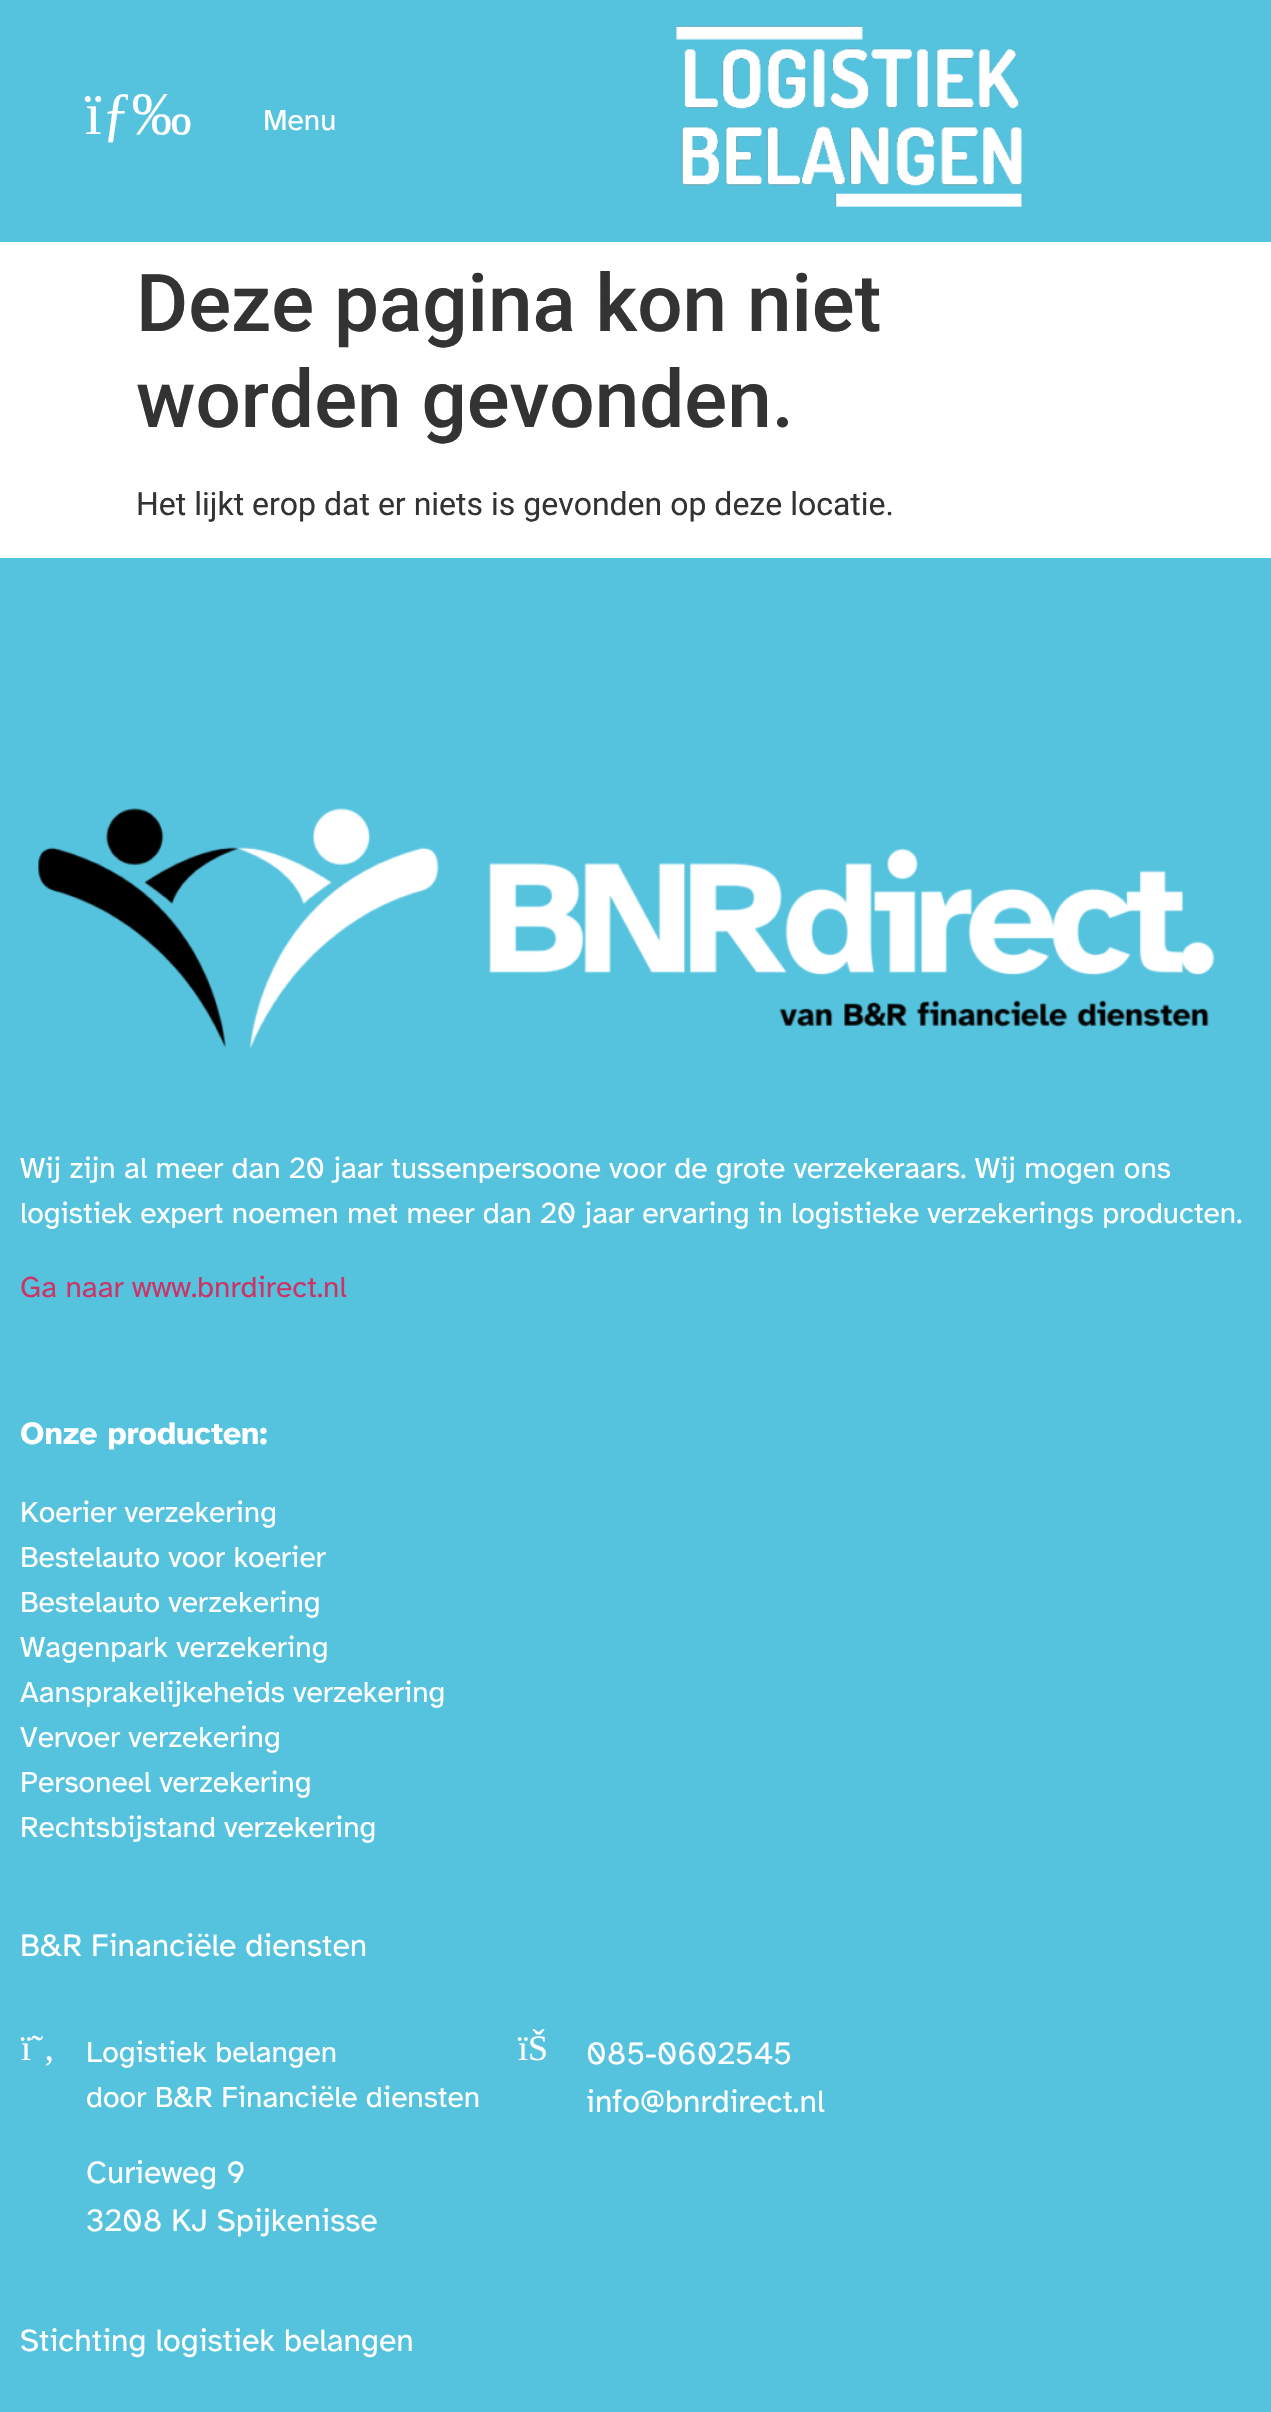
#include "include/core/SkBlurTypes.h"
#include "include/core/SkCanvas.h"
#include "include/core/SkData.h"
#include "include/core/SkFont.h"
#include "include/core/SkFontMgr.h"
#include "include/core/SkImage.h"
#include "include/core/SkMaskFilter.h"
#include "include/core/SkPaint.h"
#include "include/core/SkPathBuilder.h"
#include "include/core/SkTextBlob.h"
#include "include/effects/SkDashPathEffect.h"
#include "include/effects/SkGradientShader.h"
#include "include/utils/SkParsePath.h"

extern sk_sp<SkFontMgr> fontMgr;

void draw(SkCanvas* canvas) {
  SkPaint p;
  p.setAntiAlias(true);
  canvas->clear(SK_ColorWHITE);
  p.setColor(SkColorSetRGB(86, 195, 222));
  canvas->drawRect(SkRect::MakeLTRB(0, 0, 1271, 242), p);
  canvas->drawImageRect(SkImages::DeferredFromEncodedData(SkData::MakeFromFileName("images/1.png")), SkRect::MakeLTRB(676, 25, 1023, 207), SkSamplingOptions());
  canvas->drawRect(SkRect::MakeLTRB(0, 558, 1271, 2412), p);
  canvas->drawImageRect(SkImages::DeferredFromEncodedData(SkData::MakeFromFileName("images/2.png")), SkRect::MakeLTRB(38, 808, 1215, 1049), SkSamplingOptions());
  SkFont font1(fontMgr->matchFamilyStyle("Liberation Serif", SkFontStyle::Normal()), 60);
  font1.setSubpixel(true);
  p.setColor(SK_ColorWHITE);
  canvas->drawString("ïƒ‰", 85, 134, font1, p);
  SkFont font2(fontMgr->matchFamilyStyle("Atkinson Hyperlegible", SkFontStyle::Normal()), 30);
  font2.setSubpixel(true);
  canvas->drawString("Menu", 263, 130, font2, p);
  SkFont font3(fontMgr->matchFamilyStyle("Roboto", SkFontStyle(500, SkFontStyle::kNormal_Width, SkFontStyle::kUpright_Slant)), 80);
  font3.setSubpixel(true);
  p.setColor(SkColorSetRGB(51, 51, 51));
  canvas->drawString("Deze pagina kon niet", 136, 331, font3, p);
  canvas->drawString("worden gevonden.", 136, 427, font3, p);
  SkFont font4(fontMgr->matchFamilyStyle("Roboto", SkFontStyle::Normal()), 32);
  font4.setSubpixel(true);
  canvas->drawString("Het lijkt erop dat er niets is gevonden op deze locatie.", 136, 515, font4, p);
  p.setColor(SK_ColorWHITE);
  canvas->drawString("Wij zijn al meer dan 20 jaar tussenpersoone voor de grote verzekeraars. Wij mogen ons", 20, 1178, font2, p);
  canvas->drawString("logistiek expert noemen met meer dan 20 jaar ervaring in logistieke verzekerings producten.", 20, 1223, font2, p);
  p.setColor(SkColorSetRGB(204, 51, 102));
  canvas->drawString("Ga naar www.bnrdirect.nl", 20, 1297, font2, p);
  SkFont font5(fontMgr->matchFamilyStyle("Atkinson Hyperlegible", SkFontStyle::Bold()), 32);
  font5.setSubpixel(true);
  p.setColor(SK_ColorWHITE);
  canvas->drawString("Onze producten:", 20, 1444, font5, p);
  canvas->drawString("Koerier verzekering", 20, 1522, font2, p);
  canvas->drawString("Bestelauto voor koerier", 20, 1567, font2, p);
  canvas->drawString("Bestelauto verzekering", 20, 1612, font2, p);
  canvas->drawString("Wagenpark verzekering", 20, 1657, font2, p);
  canvas->drawString("Aansprakelijkeheids verzekering", 20, 1702, font2, p);
  canvas->drawString("Vervoer verzekering", 20, 1747, font2, p);
  canvas->drawString("Personeel verzekering", 20, 1792, font2, p);
  canvas->drawString("Rechtsbijstand verzekering", 20, 1837, font2, p);
  SkFont font6(fontMgr->matchFamilyStyle("Atkinson Hyperlegible", SkFontStyle::Normal()), 32);
  font6.setSubpixel(true);
  canvas->drawString("B&R Financiële diensten", 20, 1956, font6, p);
  SkFont font7(fontMgr->matchFamilyStyle("Liberation Serif", SkFontStyle::Normal()), 36);
  font7.setSubpixel(true);
  canvas->drawString("ï˜‚", 21, 2060, font7, p);
  canvas->drawString("Logistiek belangen", 86, 2062, font2, p);
  canvas->drawString("door B&R Financiële diensten", 86, 2107, font2, p);
  canvas->drawString("Curieweg 9", 86, 2183, font6, p);
  canvas->drawString("3208 KJ Spijkenisse", 86, 2231, font6, p);
  canvas->drawString("ïŠ", 518, 2060, font7, p);
  canvas->drawString("085-0602545", 586, 2064, font6, p);
  canvas->drawString("info@bnrdirect.nl", 586, 2112, font6, p);
  canvas->drawString("Stichting logistiek belangen", 20, 2351, font6, p);
}
